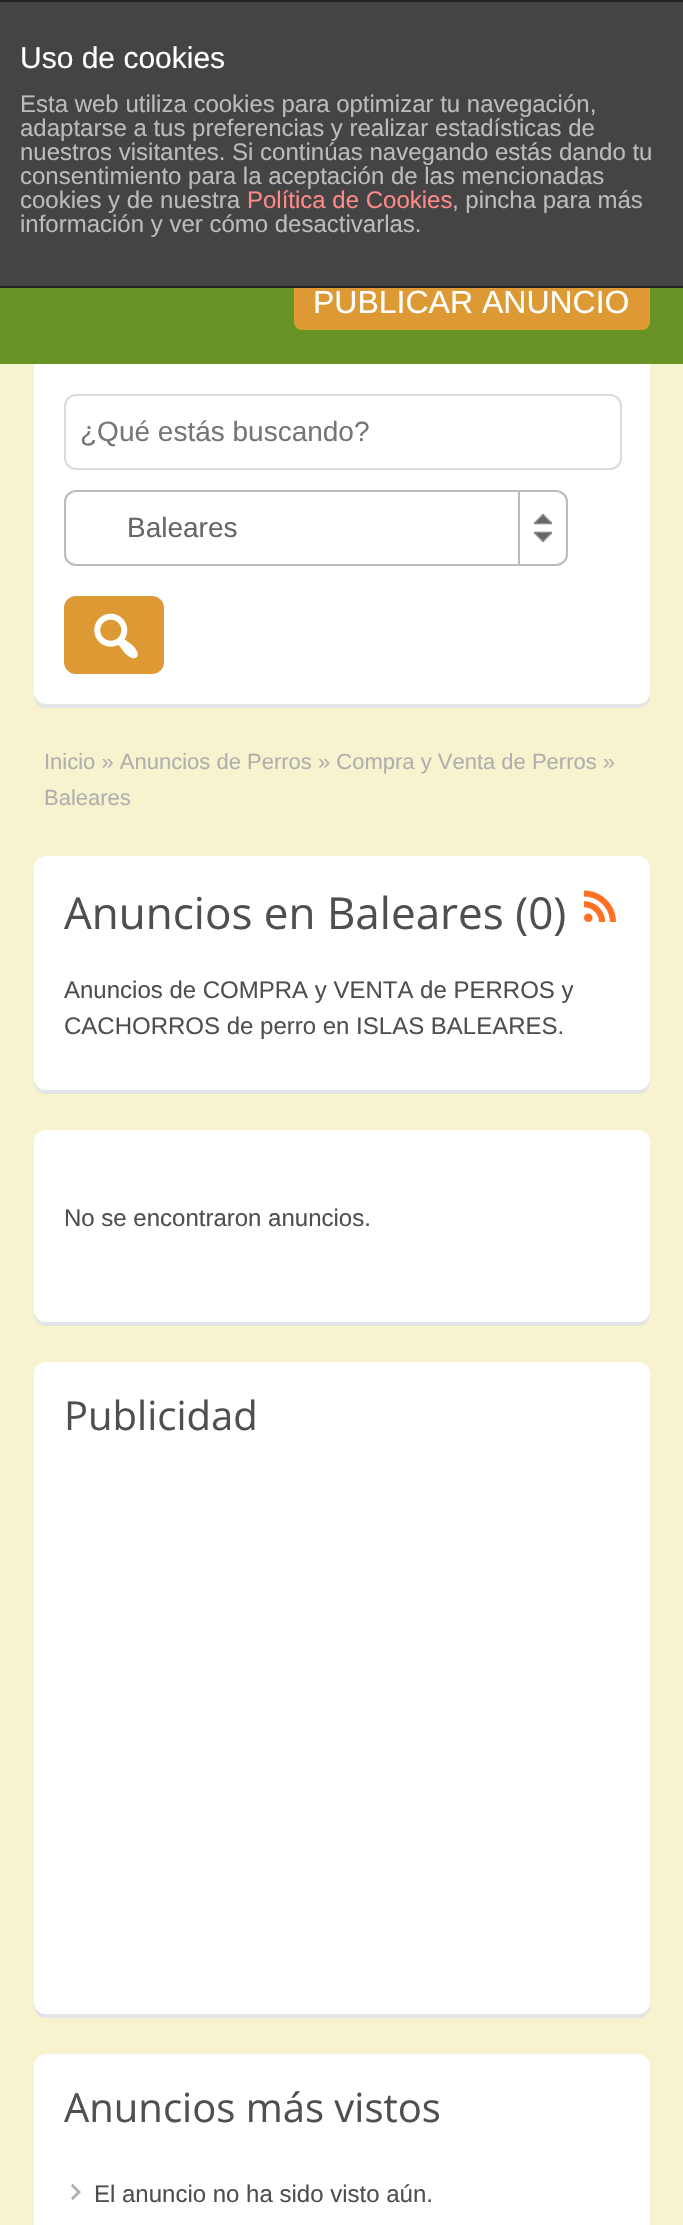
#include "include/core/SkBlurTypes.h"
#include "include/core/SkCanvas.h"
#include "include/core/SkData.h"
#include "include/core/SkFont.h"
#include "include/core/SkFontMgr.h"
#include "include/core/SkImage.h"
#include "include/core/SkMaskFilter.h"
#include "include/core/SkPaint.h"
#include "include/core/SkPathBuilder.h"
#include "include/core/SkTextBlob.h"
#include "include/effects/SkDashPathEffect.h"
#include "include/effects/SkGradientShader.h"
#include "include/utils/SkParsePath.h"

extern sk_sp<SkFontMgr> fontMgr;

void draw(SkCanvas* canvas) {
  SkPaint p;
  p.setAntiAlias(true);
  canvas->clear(SkColorSetRGB(247, 243, 207));
  p.setColor(SkColorSetRGB(103, 147, 37));
  canvas->drawRect(SkRect::MakeLTRB(0, 288, 683, 364), p);
  p.setColor(SkColorSetRGB(221, 153, 51));
  canvas->drawRoundRect(SkRect::MakeLTRB(294, 278, 650, 330), 8, 8, p);
  p.setColor(SkColorSetRGB(68, 68, 68));
  canvas->drawRect(SkRect::MakeLTRB(0, 2, 683, 286), p);
  p.setColor(SkColorSetRGB(34, 34, 34));
  canvas->drawRect(SkRect::MakeLTRB(0, 0, 683, 2), p);
  canvas->drawRect(SkRect::MakeLTRB(0, 286, 683, 288), p);
  p.setColor(SkColorSetRGB(227, 228, 231));
  canvas->drawPath(SkPathBuilder().moveTo(34, 692).lineTo(34, 696).cubicTo(34, 703, 39, 708, 46, 708).lineTo(638, 708).cubicTo(645, 708, 650, 703, 650, 696).lineTo(650, 692).cubicTo(650, 699, 645, 704, 638, 704).lineTo(46, 704).cubicTo(39, 704, 34, 699, 34, 692).close().detach(), p);
  p.setColor(SK_ColorWHITE);
  canvas->drawPath(SkPathBuilder().moveTo(34, 364).lineTo(650, 364).lineTo(650, 692).cubicTo(650, 698.5f, 644.5f, 704, 638, 704).lineTo(46, 704).cubicTo(39.5f, 704, 34, 698.5f, 34, 692).close().detach(), p);
  p.setStyle(SkPaint::kStroke_Style);
  p.setStrokeWidth(2);
  p.setColor(SkColorSetRGB(219, 219, 219));
  canvas->drawRoundRect(SkRect::MakeLTRB(65, 395, 621, 469), 11, 11, p);
  p.setColor(SkColorSetRGB(187, 187, 187));
  canvas->drawRoundRect(SkRect::MakeLTRB(65, 491, 567, 565), 11, 11, p);
  canvas->drawImageRect(SkImages::DeferredFromEncodedData(SkData::MakeFromFileName("images/1.png")), SkRect::MakeLTRB(534, 514, 552, 542), SkSamplingOptions());
  p.setStyle(SkPaint::kFill_Style);
  canvas->drawRect(SkRect::MakeLTRB(518, 492, 520, 564), p);
  p.setColor(SkColorSetRGB(221, 153, 51));
  canvas->drawRoundRect(SkRect::MakeLTRB(64, 596, 164, 674), 12, 12, p);
  canvas->drawImageRect(SkImages::DeferredFromEncodedData(SkData::MakeFromFileName("images/2.png")), SkRect::MakeLTRB(94, 613, 138, 659), SkSamplingOptions());
  p.setColor(SkColorSetRGB(227, 228, 231));
  canvas->drawPath(SkPathBuilder().moveTo(34, 1078).lineTo(34, 1082).cubicTo(34, 1089, 39, 1094, 46, 1094).lineTo(638, 1094).cubicTo(645, 1094, 650, 1089, 650, 1082).lineTo(650, 1078).cubicTo(650, 1085, 645, 1090, 638, 1090).lineTo(46, 1090).cubicTo(39, 1090, 34, 1085, 34, 1078).close().detach(), p);
  p.setColor(SK_ColorWHITE);
  canvas->drawRoundRect(SkRect::MakeLTRB(34, 856, 650, 1090), 12, 12, p);
  canvas->drawImageRect(SkImages::DeferredFromEncodedData(SkData::MakeFromFileName("images/3.png")), SkRect::MakeLTRB(584, 890, 616, 922), SkSamplingOptions());
  p.setColor(SkColorSetRGB(227, 228, 231));
  canvas->drawPath(SkPathBuilder().moveTo(34, 1310).lineTo(34, 1314).cubicTo(34, 1321, 39, 1326, 46, 1326).lineTo(638, 1326).cubicTo(645, 1326, 650, 1321, 650, 1314).lineTo(650, 1310).cubicTo(650, 1317, 645, 1322, 638, 1322).lineTo(46, 1322).cubicTo(39, 1322, 34, 1317, 34, 1310).close().detach(), p);
  p.setColor(SK_ColorWHITE);
  canvas->drawRoundRect(SkRect::MakeLTRB(34, 1130, 650, 1322), 12, 12, p);
  p.setColor(SkColorSetRGB(227, 228, 231));
  canvas->drawPath(SkPathBuilder().moveTo(34, 2002).lineTo(34, 2006).cubicTo(34, 2013, 39, 2018, 46, 2018).lineTo(638, 2018).cubicTo(645, 2018, 650, 2013, 650, 2006).lineTo(650, 2002).cubicTo(650, 2009, 645, 2014, 638, 2014).lineTo(46, 2014).cubicTo(39, 2014, 34, 2009, 34, 2002).close().detach(), p);
  p.setColor(SK_ColorWHITE);
  canvas->drawRoundRect(SkRect::MakeLTRB(34, 1362, 650, 2014), 12, 12, p);
  canvas->drawRoundRect(SkRect::MakeLTRB(34, 2054, 650, 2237), 12, 12, p);
  p.setColor(SkColorSetRGB(175, 175, 175));
  canvas->drawPath(SkPathBuilder().moveTo(71, 2198).lineTo(77, 2192).lineTo(71, 2186).lineTo(72.5f, 2183.5f).lineTo(81, 2192).lineTo(72.5f, 2200.5f).close().detach(), p);
  SkFont font1(fontMgr->matchFamilyStyle("Liberation Sans", SkFontStyle::Normal()), 30);
  font1.setSubpixel(true);
  p.setColor(SK_ColorWHITE);
  canvas->drawString("Uso de cookies", 20, 68, font1, p);
  SkFont font2(fontMgr->matchFamilyStyle("Liberation Sans", SkFontStyle::Normal()), 24);
  font2.setSubpixel(true);
  p.setColor(SkColorSetRGB(187, 187, 187));
  canvas->drawString("Esta web utiliza cookies para optimizar tu navegación,", 20, 112, font2, p);
  canvas->drawString("adaptarse a tus preferencias y realizar estadísticas de", 20, 136, font2, p);
  canvas->drawString("nuestros visitantes. Si continúas navegando estás dando tu", 20, 160, font2, p);
  canvas->drawString("consentimiento para la aceptación de las mencionadas", 20, 184, font2, p);
  canvas->drawString("cookies y de nuestra", 20, 208, font2, p);
  p.setColor(SkColorSetRGB(255, 136, 136));
  canvas->drawString("Política de Cookies", 247, 208, font2, p);
  p.setColor(SkColorSetRGB(187, 187, 187));
  canvas->drawString(", pincha para más", 452, 208, font2, p);
  canvas->drawString("información y ver cómo desactivarlas.", 20, 232, font2, p);
  SkFont font3(fontMgr->matchFamilyStyle("Liberation Sans", SkFontStyle::Normal()), 32);
  font3.setSubpixel(true);
  p.setColor(SK_ColorWHITE);
  canvas->drawString("PUBLICAR ANUNCIO", 313, 313, font3, p);
  SkFont font4(fontMgr->matchFamilyStyle("Liberation Sans", SkFontStyle::Normal()), 28);
  font4.setSubpixel(true);
  p.setColor(SkColorSetRGB(117, 117, 117));
  canvas->drawString("¿Qué estás buscando?", 80, 441, font4, p);
  p.setColor(SkColorSetRGB(102, 102, 102));
  canvas->drawString("Baleares", 127, 537, font4, p);
  SkFont font5(fontMgr->matchFamilyStyle("Liberation Sans", SkFontStyle::Normal()), 22);
  font5.setSubpixel(true);
  p.setColor(SkColorSetRGB(175, 175, 175));
  canvas->drawString("Inicio » Anuncios de Perros » Compra y Venta de Perros »", 44, 769, font5, p);
  canvas->drawString("Baleares", 44, 805, font5, p);
  SkFont font6(fontMgr->matchFamilyStyle("Open Sans", SkFontStyle::Normal()), 44);
  font6.setSubpixel(true);
  p.setColor(SkColorSetRGB(79, 79, 79));
  canvas->drawString("Anuncios en Baleares (0)", 64, 929, font6, p);
  canvas->drawString("Anuncios de COMPRA y VENTA de PERROS y", 64, 998, font2, p);
  canvas->drawString("CACHORROS de perro en ISLAS BALEARES.", 64, 1034, font2, p);
  canvas->drawString("No se encontraron anuncios.", 64, 1226, font2, p);
  SkFont font7(fontMgr->matchFamilyStyle("Open Sans", SkFontStyle::Normal()), 40);
  font7.setSubpixel(true);
  canvas->drawString("Publicidad", 64, 1430, font7, p);
  canvas->drawString("Anuncios más vistos", 64, 2122, font7, p);
  canvas->drawString("El anuncio no ha sido visto aún.", 94, 2202, font2, p);
}
